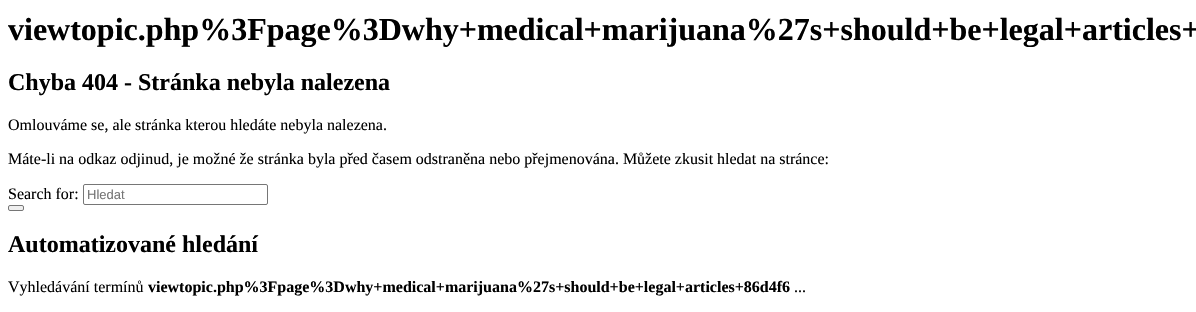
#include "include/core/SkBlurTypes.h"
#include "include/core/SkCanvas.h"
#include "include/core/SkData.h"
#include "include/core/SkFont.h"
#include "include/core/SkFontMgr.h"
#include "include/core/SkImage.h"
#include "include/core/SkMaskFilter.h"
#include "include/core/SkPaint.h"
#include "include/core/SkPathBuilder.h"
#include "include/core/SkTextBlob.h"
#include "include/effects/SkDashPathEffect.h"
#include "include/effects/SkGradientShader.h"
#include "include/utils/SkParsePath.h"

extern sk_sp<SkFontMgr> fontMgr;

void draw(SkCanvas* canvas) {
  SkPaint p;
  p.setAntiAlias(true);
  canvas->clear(SK_ColorWHITE);
  p.setStyle(SkPaint::kStroke_Style);
  p.setStrokeWidth(1);
  p.setColor(SkColorSetRGB(118, 118, 118));
  canvas->drawRoundRect(SkRect::MakeLTRB(83.5f, 184.5f, 267.5f, 204.5f), 1.5f, 1.5f, p);
  p.setStyle(SkPaint::kFill_Style);
  p.setColor(SkColorSetRGB(239, 239, 239));
  canvas->drawRoundRect(SkRect::MakeLTRB(8.5f, 205.5f, 23.5f, 210.5f), 1.5f, 1.5f, p);
  p.setStyle(SkPaint::kStroke_Style);
  p.setColor(SkColorSetRGB(118, 118, 118));
  canvas->drawRoundRect(SkRect::MakeLTRB(8.5f, 205.5f, 23.5f, 210.5f), 1.5f, 1.5f, p);
  SkFont font1(fontMgr->matchFamilyStyle("Liberation Serif", SkFontStyle::Bold()), 32);
  font1.setSubpixel(true);
  p.setStyle(SkPaint::kFill_Style);
  p.setColor(SK_ColorBLACK);
  canvas->drawString("viewtopic.php%3Fpage%3Dwhy+medical+marijuana%27s+should+be+legal+articles+", 8, 40, font1, p);
  SkFont font2(fontMgr->matchFamilyStyle("Liberation Serif", SkFontStyle::Bold()), 24);
  font2.setSubpixel(true);
  canvas->drawString("Chyba 404 - Stránka nebyla nalezena", 8, 90, font2, p);
  SkFont font3(fontMgr->matchFamilyStyle("Liberation Serif", SkFontStyle::Normal()), 16);
  font3.setSubpixel(true);
  canvas->drawString("Omlouváme se, ale stránka kterou hledáte nebyla nalezena.", 8, 130, font3, p);
  canvas->drawString("Máte-li na odkaz odjinud, je možné že stránka byla před časem odstraněna nebo přejmenována. Můžete zkusit hledat na stránce:", 8, 164, font3, p);
  canvas->drawString("Search for:", 8, 199, font3, p);
  SkFont font4(fontMgr->matchFamilyStyle("Liberation Sans", SkFontStyle::Normal()), 13);
  font4.setSubpixel(true);
  p.setColor(SkColorSetRGB(117, 117, 117));
  canvas->drawString("Hledat", 87, 199, font4, p);
  p.setColor(SK_ColorBLACK);
  canvas->drawString("Automatizované hledání", 8, 252, font2, p);
  canvas->drawString("Vyhledávání termínů", 8, 292, font3, p);
  SkFont font5(fontMgr->matchFamilyStyle("Liberation Serif", SkFontStyle::Bold()), 16);
  font5.setSubpixel(true);
  canvas->drawString("viewtopic.php%3Fpage%3Dwhy+medical+marijuana%27s+should+be+legal+articles+86d4f6", 148, 292, font5, p);
  canvas->drawString("...", 794, 292, font3, p);
}
